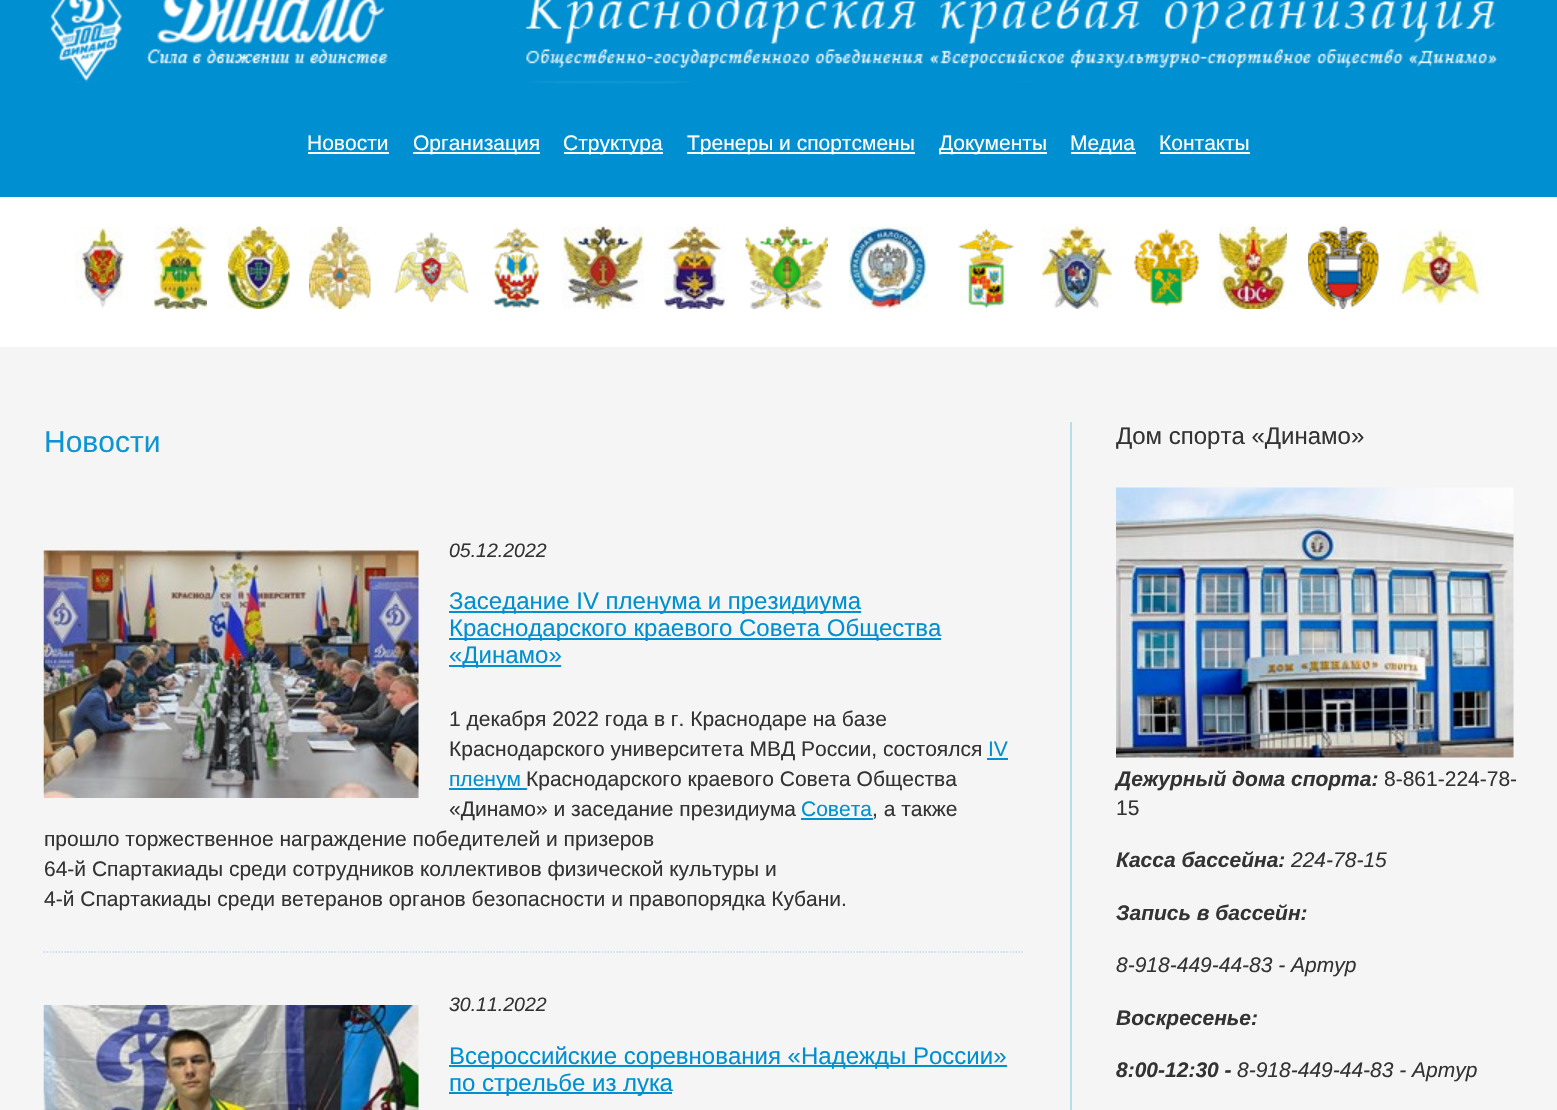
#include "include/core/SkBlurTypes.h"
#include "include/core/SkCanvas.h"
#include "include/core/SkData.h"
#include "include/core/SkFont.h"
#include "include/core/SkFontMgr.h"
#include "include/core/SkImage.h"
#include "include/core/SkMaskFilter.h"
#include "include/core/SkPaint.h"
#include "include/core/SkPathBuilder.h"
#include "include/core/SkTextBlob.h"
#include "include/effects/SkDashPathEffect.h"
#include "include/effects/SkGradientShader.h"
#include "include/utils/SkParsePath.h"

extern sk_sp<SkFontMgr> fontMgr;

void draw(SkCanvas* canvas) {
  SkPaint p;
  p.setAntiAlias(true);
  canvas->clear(SkColorSetRGB(245, 245, 245));
  p.setColor(SkColorSetRGB(0, 143, 209));
  canvas->drawRect(SkRect::MakeLTRB(0, 0, 1557, 197), p);
  canvas->drawImageRect(SkImages::DeferredFromEncodedData(SkData::MakeFromFileName("images/1.png")), SkRect::MakeLTRB(50, 0, 1498, 84), SkSamplingOptions());
  p.setColor(SK_ColorWHITE);
  canvas->drawRect(SkRect::MakeLTRB(308, 152, 389, 154), p);
  canvas->drawRect(SkRect::MakeLTRB(413, 152, 540, 154), p);
  canvas->drawRect(SkRect::MakeLTRB(564, 152, 663, 154), p);
  canvas->drawRect(SkRect::MakeLTRB(687, 152, 915, 154), p);
  canvas->drawRect(SkRect::MakeLTRB(939, 152, 1047, 154), p);
  canvas->drawRect(SkRect::MakeLTRB(1071, 152, 1136, 154), p);
  canvas->drawRect(SkRect::MakeLTRB(1160, 152, 1250, 154), p);
  canvas->drawRect(SkRect::MakeLTRB(0, 197, 1557, 347), p);
  canvas->drawImageRect(SkImages::DeferredFromEncodedData(SkData::MakeFromFileName("images/2.png")), SkRect::MakeLTRB(75, 227, 125, 308), SkSamplingOptions());
  canvas->drawImageRect(SkImages::DeferredFromEncodedData(SkData::MakeFromFileName("images/3.png")), SkRect::MakeLTRB(154, 226, 207, 309), SkSamplingOptions());
  canvas->drawImageRect(SkImages::DeferredFromEncodedData(SkData::MakeFromFileName("images/4.png")), SkRect::MakeLTRB(228, 226, 290, 309), SkSamplingOptions());
  canvas->drawImageRect(SkImages::DeferredFromEncodedData(SkData::MakeFromFileName("images/5.png")), SkRect::MakeLTRB(309, 226, 371, 309), SkSamplingOptions());
  canvas->drawImageRect(SkImages::DeferredFromEncodedData(SkData::MakeFromFileName("images/6.png")), SkRect::MakeLTRB(394, 232, 469, 303), SkSamplingOptions());
  canvas->drawImageRect(SkImages::DeferredFromEncodedData(SkData::MakeFromFileName("images/7.png")), SkRect::MakeLTRB(492, 227, 541, 308), SkSamplingOptions());
  canvas->drawImageRect(SkImages::DeferredFromEncodedData(SkData::MakeFromFileName("images/8.png")), SkRect::MakeLTRB(562, 226, 644, 309), SkSamplingOptions());
  canvas->drawImageRect(SkImages::DeferredFromEncodedData(SkData::MakeFromFileName("images/9.png")), SkRect::MakeLTRB(664, 226, 725, 309), SkSamplingOptions());
  canvas->drawImageRect(SkImages::DeferredFromEncodedData(SkData::MakeFromFileName("images/10.png")), SkRect::MakeLTRB(745, 226, 828, 309), SkSamplingOptions());
  canvas->drawImageRect(SkImages::DeferredFromEncodedData(SkData::MakeFromFileName("images/11.png")), SkRect::MakeLTRB(849, 226, 927, 309), SkSamplingOptions());
  canvas->drawImageRect(SkImages::DeferredFromEncodedData(SkData::MakeFromFileName("images/12.png")), SkRect::MakeLTRB(958, 228, 1015, 308), SkSamplingOptions());
  canvas->drawImageRect(SkImages::DeferredFromEncodedData(SkData::MakeFromFileName("images/13.png")), SkRect::MakeLTRB(1042, 226, 1112, 309), SkSamplingOptions());
  canvas->drawImageRect(SkImages::DeferredFromEncodedData(SkData::MakeFromFileName("images/14.png")), SkRect::MakeLTRB(1133, 229, 1199, 307), SkSamplingOptions());
  canvas->drawImageRect(SkImages::DeferredFromEncodedData(SkData::MakeFromFileName("images/15.png")), SkRect::MakeLTRB(1219, 226, 1287, 309), SkSamplingOptions());
  canvas->drawImageRect(SkImages::DeferredFromEncodedData(SkData::MakeFromFileName("images/16.png")), SkRect::MakeLTRB(1308, 226, 1379, 309), SkSamplingOptions());
  canvas->drawImageRect(SkImages::DeferredFromEncodedData(SkData::MakeFromFileName("images/17.png")), SkRect::MakeLTRB(1399, 229, 1482, 306), SkSamplingOptions());
  p.setColor(SkColorSetRGB(184, 219, 236));
  canvas->drawRect(SkRect::MakeLTRB(1070, 422, 1072, 1110), p);
  canvas->drawImageRect(SkImages::DeferredFromEncodedData(SkData::MakeFromFileName("images/18.png")), SkRect::MakeLTRB(43, 550, 419, 798), SkSamplingOptions());
  p.setColor(SkColorSetRGB(0, 143, 208));
  canvas->drawRect(SkRect::MakeLTRB(449, 611, 861, 613), p);
  canvas->drawRect(SkRect::MakeLTRB(449, 638, 941, 640), p);
  canvas->drawRect(SkRect::MakeLTRB(449, 665, 561, 667), p);
  canvas->drawRect(SkRect::MakeLTRB(987, 758, 1008, 760), p);
  canvas->drawRect(SkRect::MakeLTRB(449, 788, 527, 790), p);
  canvas->drawRect(SkRect::MakeLTRB(801, 818, 873, 820), p);
  p.setStyle(SkPaint::kStroke_Style);
  p.setStrokeWidth(1.5f);
  p.setColor(SkColorSetRGB(184, 219, 236));
  p.setPathEffect(SkDashPathEffect::Make({{1.5f, 1.5f}}, 0));
  canvas->drawPath(SkPathBuilder().moveTo(43.5f, 952).lineTo(1024.5f, 952).detach(), p);
  p.setPathEffect(nullptr);
  canvas->drawImageRect(SkImages::DeferredFromEncodedData(SkData::MakeFromFileName("images/19.png")), SkRect::MakeLTRB(43, 1005, 419, 1110), SkSamplingOptions());
  p.setStyle(SkPaint::kFill_Style);
  p.setColor(SkColorSetRGB(0, 143, 208));
  canvas->drawRect(SkRect::MakeLTRB(449, 1065, 1007, 1067), p);
  canvas->drawRect(SkRect::MakeLTRB(449, 1092, 672, 1094), p);
  canvas->drawImageRect(SkImages::DeferredFromEncodedData(SkData::MakeFromFileName("images/20.png")), SkRect::MakeLTRB(1116, 487, 1514, 758), SkSamplingOptions());
  SkFont font1(fontMgr->matchFamilyStyle("Liberation Sans", SkFontStyle::Normal()), 21);
  font1.setSubpixel(true);
  p.setColor(SK_ColorWHITE);
  canvas->drawString("Новости", 307, 150, font1, p);
  canvas->drawString("Организация", 413, 150, font1, p);
  canvas->drawString("Структура", 563, 150, font1, p);
  canvas->drawString("Тренеры и спортсмены", 687, 150, font1, p);
  canvas->drawString("Документы", 939, 150, font1, p);
  canvas->drawString("Медиа", 1070, 150, font1, p);
  canvas->drawString("Контакты", 1159, 150, font1, p);
  SkFont font2(fontMgr->matchFamilyStyle("Liberation Sans", SkFontStyle::Normal()), 30);
  font2.setSubpixel(true);
  p.setColor(SkColorSetRGB(13, 148, 210));
  canvas->drawString("Новости", 44, 452, font2, p);
  SkFont font3(fontMgr->matchFamilyStyle("Liberation Sans", SkFontStyle::Italic()), 19.5f);
  font3.setSubpixel(true);
  p.setColor(SkColorSetRGB(51, 51, 51));
  canvas->drawString("05.12.2022", 449, 557, font3, p);
  SkFont font4(fontMgr->matchFamilyStyle("Liberation Sans", SkFontStyle::Normal()), 24);
  font4.setSubpixel(true);
  p.setColor(SkColorSetRGB(0, 143, 208));
  canvas->drawString("Заседание IV пленума и президиума", 449, 609, font4, p);
  canvas->drawString("Краснодарского краевого Совета Общества", 449, 636, font4, p);
  canvas->drawString("«Динамо»", 449, 663, font4, p);
  p.setColor(SkColorSetRGB(51, 51, 51));
  canvas->drawString("1 декабря 2022 года в г. Краснодаре на базе", 449, 726, font1, p);
  canvas->drawString("Краснодарского университета МВД России, состоялся", 449, 756, font1, p);
  p.setColor(SkColorSetRGB(0, 143, 208));
  canvas->drawString("IV", 988, 756, font1, p);
  canvas->drawString("пленум", 449, 786, font1, p);
  p.setColor(SkColorSetRGB(51, 51, 51));
  canvas->drawString("Краснодарского краевого Совета Общества", 526, 786, font1, p);
  canvas->drawString("«Динамо» и заседание президиума", 449, 816, font1, p);
  p.setColor(SkColorSetRGB(0, 143, 208));
  canvas->drawString("Совета", 801, 816, font1, p);
  p.setColor(SkColorSetRGB(51, 51, 51));
  canvas->drawString(", а также", 872, 816, font1, p);
  canvas->drawString("прошло торжественное награждение победителей и призеров", 44, 846, font1, p);
  canvas->drawString("64-й Спартакиады среди сотрудников коллективов физической культуры и", 44, 876, font1, p);
  canvas->drawString("4-й Спартакиады среди ветеранов органов безопасности и правопорядка Кубани.", 44, 906, font1, p);
  canvas->drawString("30.11.2022", 449, 1011, font3, p);
  p.setColor(SkColorSetRGB(0, 143, 208));
  canvas->drawString("Всероссийские соревнования «Надежды России»", 449, 1064, font4, p);
  canvas->drawString("по стрельбе из лука", 449, 1091, font4, p);
  p.setColor(SkColorSetRGB(51, 51, 51));
  canvas->drawString("Дом спорта «Динамо»", 1116, 444, font4, p);
  SkFont font5(fontMgr->matchFamilyStyle("Liberation Sans", SkFontStyle::BoldItalic()), 21);
  font5.setSubpixel(true);
  canvas->drawString("Дежурный дома спорта:", 1116, 786, font5, p);
  canvas->drawString("8-861-224-78-", 1384, 786, font1, p);
  canvas->drawString("15", 1116, 815, font1, p);
  canvas->drawString("Касса бассейна:", 1116, 867, font5, p);
  SkFont font6(fontMgr->matchFamilyStyle("Liberation Sans", SkFontStyle::Italic()), 21);
  font6.setSubpixel(true);
  canvas->drawString("224-78-15", 1291, 867, font6, p);
  canvas->drawString("Запись в бассейн:", 1116, 920, font5, p);
  canvas->drawString("8-918-449-44-83 - Артур", 1116, 972, font6, p);
  canvas->drawString("Воскресенье:", 1116, 1025, font5, p);
  canvas->drawString("8:00-12:30 -", 1116, 1077, font5, p);
  canvas->drawString("8-918-449-44-83 - Артур", 1237, 1077, font6, p);
}
